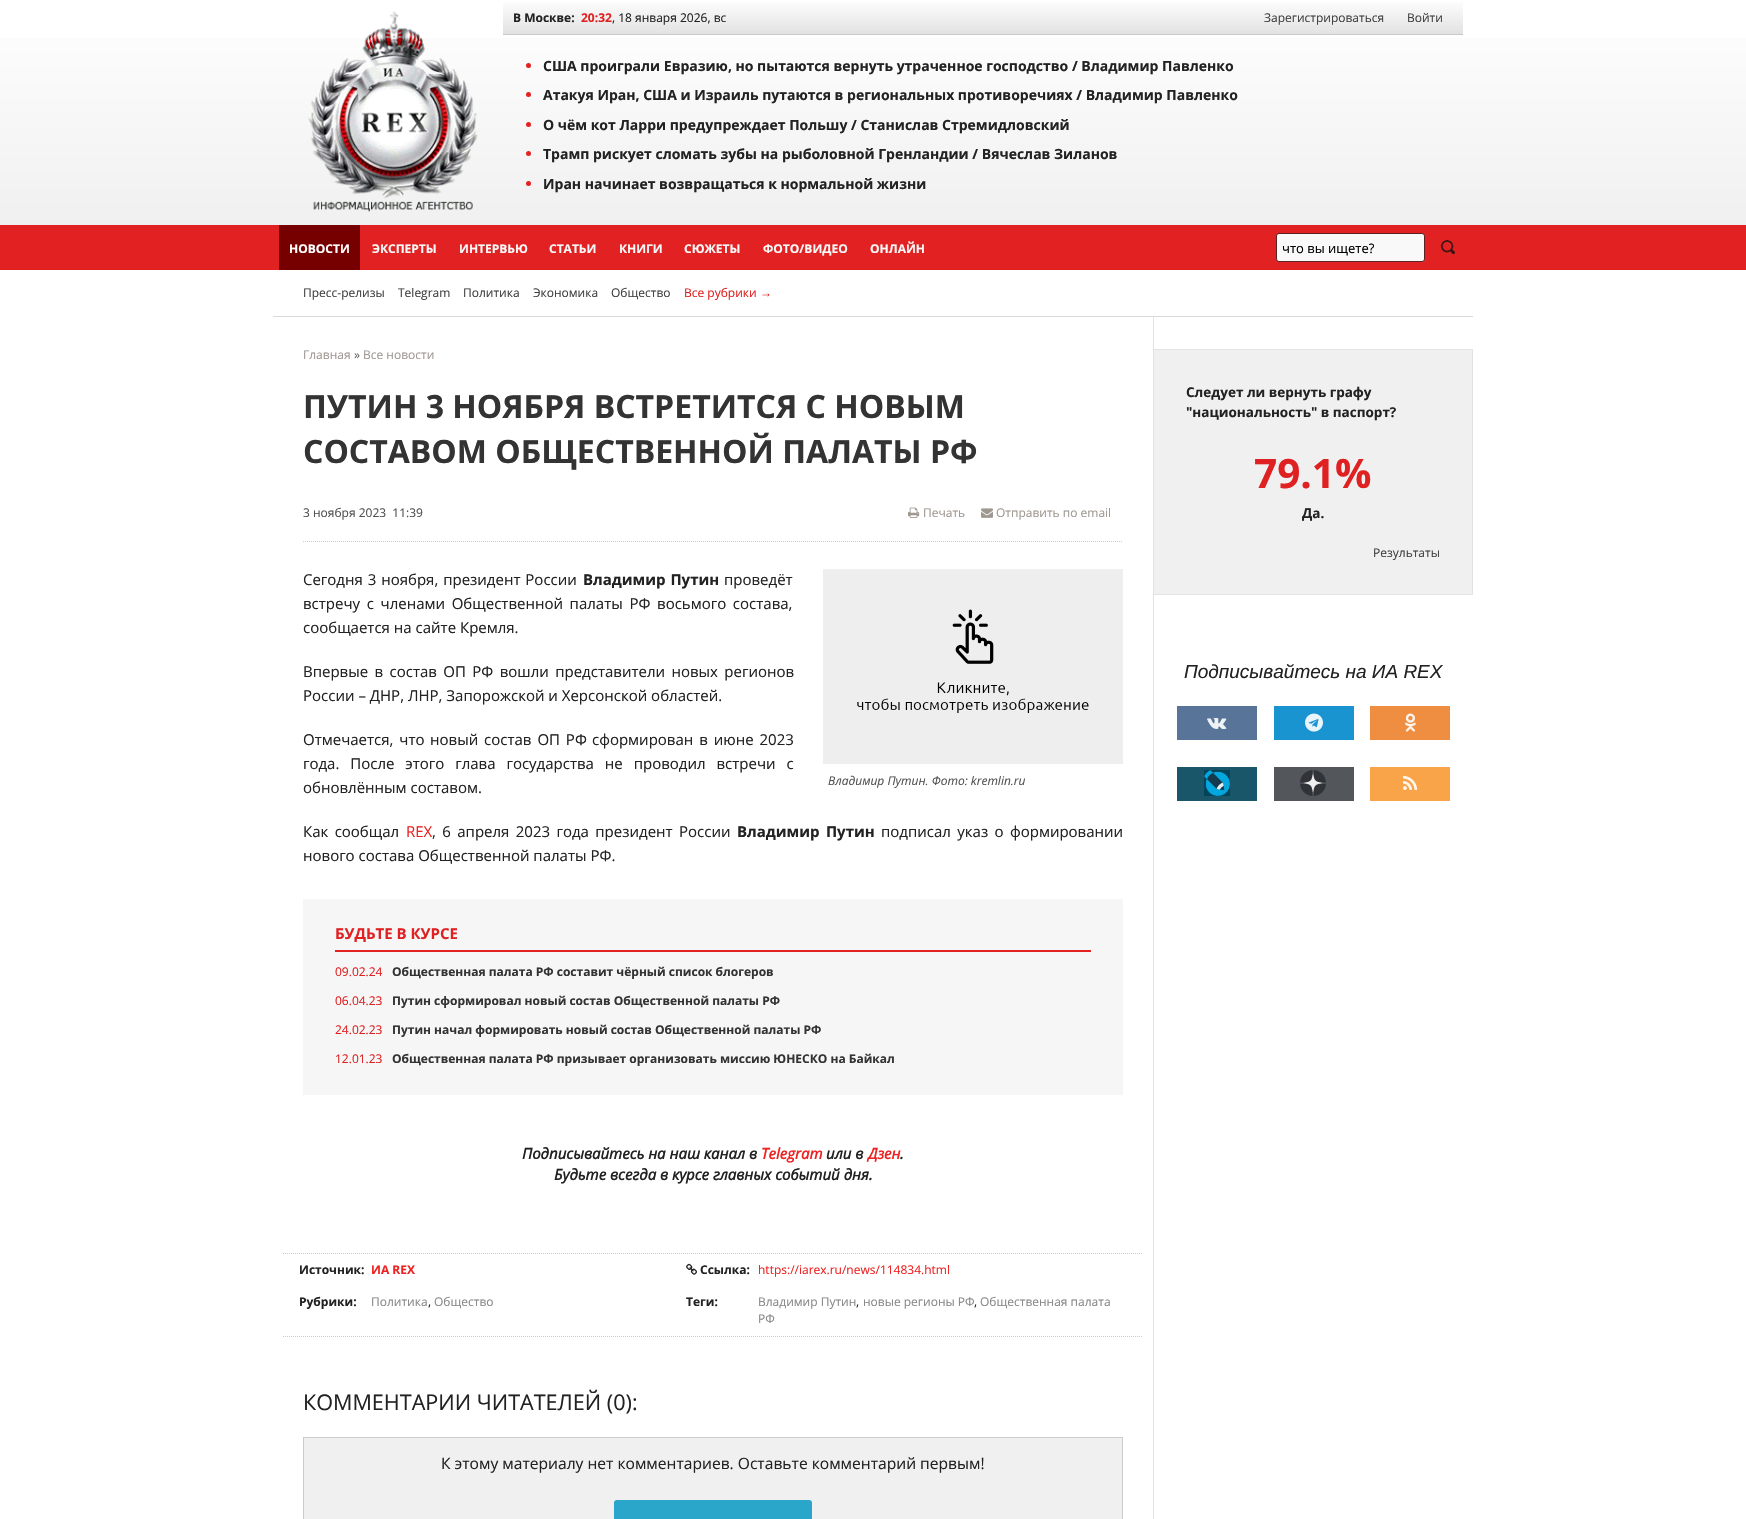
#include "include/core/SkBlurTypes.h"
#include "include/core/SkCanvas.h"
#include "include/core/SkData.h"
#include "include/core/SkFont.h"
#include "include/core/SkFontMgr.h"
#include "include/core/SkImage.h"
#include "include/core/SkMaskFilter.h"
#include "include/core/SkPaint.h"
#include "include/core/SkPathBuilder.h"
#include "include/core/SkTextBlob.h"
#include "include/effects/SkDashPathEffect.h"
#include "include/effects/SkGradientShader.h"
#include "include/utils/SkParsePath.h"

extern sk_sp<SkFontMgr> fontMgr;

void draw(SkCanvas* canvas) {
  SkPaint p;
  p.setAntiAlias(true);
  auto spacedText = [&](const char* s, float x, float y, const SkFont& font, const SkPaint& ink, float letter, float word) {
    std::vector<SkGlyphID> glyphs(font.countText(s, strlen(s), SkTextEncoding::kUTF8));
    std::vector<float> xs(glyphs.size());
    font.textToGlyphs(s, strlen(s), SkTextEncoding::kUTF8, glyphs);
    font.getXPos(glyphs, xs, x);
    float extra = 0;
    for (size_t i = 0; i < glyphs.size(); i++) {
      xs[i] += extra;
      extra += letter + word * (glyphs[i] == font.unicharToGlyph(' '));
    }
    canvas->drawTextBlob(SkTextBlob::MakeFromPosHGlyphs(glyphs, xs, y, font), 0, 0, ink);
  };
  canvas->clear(SK_ColorWHITE);
  {
    const SkColor colors[] = {SK_ColorWHITE, SkColorSetRGB(240, 240, 240)};
    const float stops[] = {0, 1};
    const SkPoint ends[] = {{873, 0}, {873, 225}};
    p.setShader(SkGradientShader::MakeLinear(ends, colors, stops, 2, SkTileMode::kClamp));
    p.setAlpha(255);
  }
  canvas->drawRect(SkRect::MakeLTRB(0, 38, 1746, 225), p);
  canvas->drawImageRect(SkImages::DeferredFromEncodedData(SkData::MakeFromFileName("images/1.png")), SkRect::MakeLTRB(308, 11, 478, 212), SkSamplingOptions());
  {
    const SkColor colors[] = {SkColorSetRGB(254, 254, 254), SkColorSetRGB(226, 226, 226)};
    const float stops[] = {0, 1};
    const SkPoint ends[] = {{983, 0}, {983, 34}};
    p.setShader(SkGradientShader::MakeLinear(ends, colors, stops, 2, SkTileMode::kClamp));
    p.setAlpha(255);
  }
  canvas->drawRect(SkRect::MakeLTRB(503, 2, 1463, 34), p);
  p.setShader(nullptr);
  p.setColor(SkColorSetRGB(202, 202, 202));
  canvas->drawRect(SkRect::MakeLTRB(503, 34, 1463, 35), p);
  p.setColor(SkColorSetRGB(226, 34, 34));
  canvas->drawCircle(528.5f, 65.5f, 2.5f, p);
  canvas->drawCircle(528.5f, 94.5f, 2.5f, p);
  canvas->drawCircle(528.5f, 124.5f, 2.5f, p);
  canvas->drawCircle(528.5f, 153.5f, 2.5f, p);
  canvas->drawCircle(528.5f, 183.5f, 2.5f, p);
  canvas->drawRect(SkRect::MakeLTRB(0, 225, 1746, 270), p);
  p.setColor(SkColorSetRGB(118, 0, 0));
  canvas->drawRect(SkRect::MakeLTRB(279, 225, 360, 270), p);
  p.setColor(SkColorSetRGB(249, 249, 249));
  canvas->drawRoundRect(SkRect::MakeLTRB(1276.5f, 233.5f, 1424.5f, 261.5f), 2.5f, 2.5f, p);
  p.setStyle(SkPaint::kStroke_Style);
  p.setStrokeWidth(1);
  p.setColor(SkColorSetRGB(89, 35, 35));
  canvas->drawRoundRect(SkRect::MakeLTRB(1276.5f, 233.5f, 1424.5f, 261.5f), 2.5f, 2.5f, p);
  canvas->drawImageRect(SkImages::DeferredFromEncodedData(SkData::MakeFromFileName("images/2.png")), SkRect::MakeLTRB(1440, 240, 1456, 255), SkSamplingOptions());
  p.setStyle(SkPaint::kFill_Style);
  p.setColor(SkColorSetRGB(218, 218, 218));
  canvas->drawRect(SkRect::MakeLTRB(273, 316, 1473, 317), p);
  p.setStyle(SkPaint::kStroke_Style);
  p.setColor(SkColorSetRGB(204, 204, 204));
  p.setPathEffect(SkDashPathEffect::Make({{1, 1}}, 0));
  canvas->drawPath(SkPathBuilder().moveTo(303, 541.5f).lineTo(1123, 541.5f).detach(), p);
  p.setPathEffect(nullptr);
  canvas->drawImageRect(SkImages::DeferredFromEncodedData(SkData::MakeFromFileName("images/3.png")), SkRect::MakeLTRB(908, 507, 920, 518), SkSamplingOptions());
  canvas->drawImageRect(SkImages::DeferredFromEncodedData(SkData::MakeFromFileName("images/4.png")), SkRect::MakeLTRB(981, 508, 993, 518), SkSamplingOptions());
  p.setStyle(SkPaint::kFill_Style);
  p.setColor(SkColorSetRGB(246, 246, 246));
  canvas->drawRect(SkRect::MakeLTRB(303, 899, 1123, 1095), p);
  p.setColor(SkColorSetRGB(226, 34, 34));
  canvas->drawRect(SkRect::MakeLTRB(335, 950, 1091, 952), p);
  canvas->drawImageRect(SkImages::DeferredFromEncodedData(SkData::MakeFromFileName("images/5.png")), SkRect::MakeLTRB(823, 569, 1123, 764), SkSamplingOptions());
  p.setStyle(SkPaint::kStroke_Style);
  p.setColor(SkColorSetRGB(204, 204, 204));
  p.setPathEffect(SkDashPathEffect::Make({{1, 1}}, 0));
  canvas->drawPath(SkPathBuilder().moveTo(283, 1253.5f).lineTo(1143, 1253.5f).detach(), p);
  p.setPathEffect(nullptr);
  p.setPathEffect(SkDashPathEffect::Make({{1, 1}}, 0));
  canvas->drawPath(SkPathBuilder().moveTo(283, 1336.5f).lineTo(1143, 1336.5f).detach(), p);
  p.setPathEffect(nullptr);
  canvas->drawImageRect(SkImages::DeferredFromEncodedData(SkData::MakeFromFileName("images/6.png")), SkRect::MakeLTRB(686, 1263, 697, 1275), SkSamplingOptions());
  p.setStyle(SkPaint::kFill_Style);
  p.setColor(SkColorSetRGB(240, 240, 240));
  canvas->drawRect(SkRect::MakeLTRB(303.5f, 1437.5f, 1122.5f, 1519.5f), p);
  p.setStyle(SkPaint::kStroke_Style);
  p.setColor(SkColorSetRGB(204, 204, 204));
  canvas->drawRect(SkRect::MakeLTRB(303.5f, 1437.5f, 1122.5f, 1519.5f), p);
  p.setStyle(SkPaint::kFill_Style);
  p.setColor(SkColorSetRGB(43, 166, 203));
  canvas->drawRoundRect(SkRect::MakeLTRB(614, 1500, 812, 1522), 3, 3, p);
  p.setColor(SkColorSetRGB(226, 226, 226));
  canvas->drawRect(SkRect::MakeLTRB(1153, 317, 1154, 1519), p);
  p.setColor(SkColorSetRGB(240, 240, 240));
  canvas->drawRect(SkRect::MakeLTRB(1154, 350, 1472, 594), p);
  p.setColor(SkColorSetRGB(226, 226, 226));
  canvas->drawRect(SkRect::MakeLTRB(1154, 349, 1473, 350), p);
  canvas->drawRect(SkRect::MakeLTRB(1472, 349, 1473, 595), p);
  canvas->drawRect(SkRect::MakeLTRB(1154, 594, 1473, 595), p);
  p.setColor(SkColorSetRGB(88, 117, 153));
  canvas->drawRect(SkRect::MakeLTRB(1177, 706, 1257, 740), p);
  canvas->drawImageRect(SkImages::DeferredFromEncodedData(SkData::MakeFromFileName("images/7.png")), SkRect::MakeLTRB(1207, 718, 1227, 729), SkSamplingOptions());
  p.setColor(SkColorSetRGB(26, 148, 209));
  canvas->drawRect(SkRect::MakeLTRB(1274, 706, 1354, 740), p);
  canvas->drawImageRect(SkImages::DeferredFromEncodedData(SkData::MakeFromFileName("images/8.png")), SkRect::MakeLTRB(1305, 713, 1323, 732), SkSamplingOptions());
  p.setColor(SkColorSetRGB(239, 142, 64));
  canvas->drawRect(SkRect::MakeLTRB(1370, 706, 1450, 740), p);
  canvas->drawImageRect(SkImages::DeferredFromEncodedData(SkData::MakeFromFileName("images/9.png")), SkRect::MakeLTRB(1405, 713, 1416, 732), SkSamplingOptions());
  p.setColor(SkColorSetRGB(26, 86, 106));
  canvas->drawRect(SkRect::MakeLTRB(1177, 767, 1257, 801), p);
  canvas->drawImageRect(SkImages::DeferredFromEncodedData(SkData::MakeFromFileName("images/10.png")), SkRect::MakeLTRB(1204, 770, 1230, 796), SkSamplingOptions());
  p.setColor(SkColorSetRGB(83, 87, 91));
  canvas->drawRect(SkRect::MakeLTRB(1274, 767, 1354, 801), p);
  canvas->drawImageRect(SkImages::DeferredFromEncodedData(SkData::MakeFromFileName("images/11.png")), SkRect::MakeLTRB(1300, 770, 1326, 796), SkSamplingOptions());
  p.setColor(SkColorSetRGB(249, 164, 73));
  canvas->drawRect(SkRect::MakeLTRB(1370, 767, 1450, 801), p);
  canvas->drawImageRect(SkImages::DeferredFromEncodedData(SkData::MakeFromFileName("images/12.png")), SkRect::MakeLTRB(1403, 775, 1418, 790), SkSamplingOptions());
  SkFont font1(fontMgr->matchFamilyStyle("Open Sans", SkFontStyle::Bold()), 12);
  font1.setSubpixel(true);
  p.setColor(SkColorSetRGB(34, 34, 34));
  canvas->drawString("В Москве:", 513, 22, font1, p);
  p.setColor(SkColorSetRGB(224, 33, 33));
  canvas->drawString("20:32", 581, 22, font1, p);
  SkFont font2(fontMgr->matchFamilyStyle("Open Sans", SkFontStyle::Normal()), 12);
  font2.setSubpixel(true);
  p.setColor(SkColorSetRGB(34, 34, 34));
  canvas->drawString(", 18 января 2026, вс", 612, 22, font2, p);
  p.setColor(SkColorSetRGB(64, 64, 64));
  canvas->drawString("Зарегистрироваться", 1264, 22, font2, p);
  canvas->drawString("Войти", 1407, 22, font2, p);
  SkFont font3(fontMgr->matchFamilyStyle("Open Sans", SkFontStyle::Bold()), 14);
  font3.setSubpixel(true);
  p.setColor(SkColorSetRGB(34, 34, 34));
  canvas->drawString("США проиграли Евразию, но пытаются вернуть утраченное господство / Владимир Павленко", 543, 71, font3, p);
  canvas->drawString("Атакуя Иран, США и Израиль путаются в региональных противоречиях / Владимир Павленко", 543, 100, font3, p);
  canvas->drawString("О чём кот Ларри предупреждает Польшу / Станислав Стремидловский", 543, 130, font3, p);
  canvas->drawString("Трамп рискует сломать зубы на рыболовной Гренландии / Вячеслав Зиланов", 543, 159, font3, p);
  canvas->drawString("Иран начинает возвращаться к нормальной жизни", 543, 189, font3, p);
  p.setColor(SK_ColorWHITE);
  canvas->drawString("НОВОСТИ", 289, 253, font1, p);
  p.setColor(SkColorSetRGB(248, 248, 248));
  canvas->drawString("ЭКСПЕРТЫ", 372, 253, font1, p);
  canvas->drawString("ИНТЕРВЬЮ", 459, 253, font1, p);
  canvas->drawString("СТАТЬИ", 549, 253, font1, p);
  canvas->drawString("КНИГИ", 619, 253, font1, p);
  canvas->drawString("СЮЖЕТЫ", 684, 253, font1, p);
  canvas->drawString("ФОТО/ВИДЕО", 763, 253, font1, p);
  canvas->drawString("ОНЛАЙН", 870, 253, font1, p);
  SkFont font4(fontMgr->matchFamilyStyle("Open Sans", SkFontStyle::Normal()), 13);
  font4.setSubpixel(true);
  p.setColor(SK_ColorBLACK);
  canvas->drawString("что вы ищете?", 1282, 253, font4, p);
  p.setColor(SkColorSetRGB(64, 64, 64));
  canvas->drawString("Пресс-релизы", 303, 297, font2, p);
  canvas->drawString("Telegram", 398, 297, font2, p);
  canvas->drawString("Политика", 463, 297, font2, p);
  canvas->drawString("Экономика", 533, 297, font2, p);
  canvas->drawString("Общество", 611, 297, font2, p);
  p.setColor(SkColorSetRGB(224, 33, 33));
  canvas->drawString("Все рубрики", 684, 297, font2, p);
  SkFont font5(fontMgr->matchFamilyStyle("Liberation Sans", SkFontStyle::Normal()), 12);
  font5.setSubpixel(true);
  canvas->drawString("→", 760, 297, font5, p);
  p.setColor(SkColorSetRGB(159, 152, 145));
  canvas->drawString("Главная", 303, 359, font2, p);
  p.setColor(SkColorSetRGB(102, 102, 102));
  canvas->drawString("»", 354, 359, font2, p);
  p.setColor(SkColorSetRGB(159, 152, 145));
  canvas->drawString("Все новости", 363, 359, font2, p);
  SkFont font6(fontMgr->matchFamilyStyle("Open Sans", SkFontStyle::Bold()), 32);
  font6.setSubpixel(true);
  p.setColor(SkColorSetRGB(51, 51, 51));
  canvas->drawString("ПУТИН 3 НОЯБРЯ ВСТРЕТИТСЯ С НОВЫМ", 303, 418, font6, p);
  canvas->drawString("СОСТАВОМ ОБЩЕСТВЕННОЙ ПАЛАТЫ РФ", 303, 463, font6, p);
  p.setColor(SkColorSetRGB(81, 81, 81));
  canvas->drawString("3 ноября 2023  11:39", 303, 517, font2, p);
  p.setColor(SkColorSetRGB(159, 152, 145));
  canvas->drawString("Печать", 923, 517, font2, p);
  canvas->drawString("Отправить по email", 996, 517, font2, p);
  SkFont font7(fontMgr->matchFamilyStyle("Open Sans", SkFontStyle::Normal()), 15);
  font7.setSubpixel(true);
  p.setColor(SkColorSetRGB(34, 34, 34));
  spacedText("Сегодня 3 ноября, президент России", 303, 585, font7, p, 0, 1);
  SkFont font8(fontMgr->matchFamilyStyle("Open Sans", SkFontStyle::Bold()), 15);
  font8.setSubpixel(true);
  spacedText("Владимир Путин", 583, 585, font8, p, 0, 1);
  canvas->drawString("проведёт", 724, 585, font7, p);
  spacedText("встречу с членами Общественной палаты РФ восьмого состава,", 303, 609, font7, p, 0, 2.75f);
  canvas->drawString("сообщается на сайте Кремля.", 303, 633, font7, p);
  spacedText("Впервые в состав ОП РФ вошли представители новых регионов", 303, 677, font7, p, 0, 2.5f);
  canvas->drawString("России – ДНР, ЛНР, Запорожской и Херсонской областей.", 303, 701, font7, p);
  spacedText("Отмечается, что", 303, 745, font7, p, 0, 2);
  spacedText("новый состав ОП РФ", 430, 745, font7, p, 0, 2);
  spacedText("сформирован в июне 2023", 592, 745, font7, p, 0, 2);
  spacedText("года. После этого глава государства не проводил встречи с", 303, 769, font7, p, 0, 7);
  canvas->drawString("обновлённым составом.", 303, 793, font7, p);
  spacedText("Как сообщал", 303, 837, font7, p, 0, 2.5f);
  p.setColor(SkColorSetRGB(238, 34, 34));
  canvas->drawString("REX", 406, 837, font7, p);
  p.setColor(SkColorSetRGB(34, 34, 34));
  spacedText(", 6 апреля 2023 года президент России", 432, 837, font7, p, 0, 2.5f);
  spacedText("Владимир Путин", 737, 837, font8, p, 0, 2.5f);
  spacedText("подписал указ о формировании", 881, 837, font7, p, 0, 2.5f);
  canvas->drawString("нового состава Общественной палаты РФ.", 303, 861, font7, p);
  p.setColor(SkColorSetRGB(224, 33, 33));
  canvas->drawString("БУДЬТЕ В КУРСЕ", 335, 939, font8, p);
  canvas->drawString("09.02.24", 335, 976, font2, p);
  p.setColor(SkColorSetRGB(51, 51, 51));
  canvas->drawString("Общественная палата РФ составит чёрный список блогеров", 392, 976, font1, p);
  p.setColor(SkColorSetRGB(224, 33, 33));
  canvas->drawString("06.04.23", 335, 1005, font2, p);
  p.setColor(SkColorSetRGB(51, 51, 51));
  canvas->drawString("Путин сформировал новый состав Общественной палаты РФ", 392, 1005, font1, p);
  p.setColor(SkColorSetRGB(224, 33, 33));
  canvas->drawString("24.02.23", 335, 1034, font2, p);
  p.setColor(SkColorSetRGB(51, 51, 51));
  canvas->drawString("Путин начал формировать новый состав Общественной палаты РФ", 392, 1034, font1, p);
  p.setColor(SkColorSetRGB(224, 33, 33));
  canvas->drawString("12.01.23", 335, 1063, font2, p);
  p.setColor(SkColorSetRGB(51, 51, 51));
  canvas->drawString("Общественная палата РФ призывает организовать миссию ЮНЕСКО на Байкал", 392, 1063, font1, p);
  SkFont font9(fontMgr->matchFamilyStyle("Open Sans", SkFontStyle::BoldItalic()), 15);
  font9.setSubpixel(true);
  p.setColor(SkColorSetRGB(34, 34, 34));
  canvas->drawString("Подписывайтесь на наш канал в", 522, 1159, font9, p);
  p.setColor(SkColorSetRGB(238, 34, 34));
  canvas->drawString("Telegram", 761, 1159, font9, p);
  p.setColor(SkColorSetRGB(34, 34, 34));
  canvas->drawString("или в", 826, 1159, font9, p);
  p.setColor(SkColorSetRGB(238, 34, 34));
  canvas->drawString("Дзен", 868, 1159, font9, p);
  p.setColor(SkColorSetRGB(34, 34, 34));
  canvas->drawString(".", 900, 1159, font9, p);
  canvas->drawString("Будьте всегда в курсе главных событий дня.", 554, 1180, font9, p);
  SkFont font10(fontMgr->matchFamilyStyle("Open Sans", SkFontStyle::Italic()), 12);
  font10.setSubpixel(true);
  p.setColor(SkColorSetRGB(81, 81, 81));
  canvas->drawString("Владимир Путин. Фото: kremlin.ru", 828, 785, font10, p);
  p.setColor(SkColorSetRGB(34, 34, 34));
  canvas->drawString("Источник:", 299, 1274, font1, p);
  p.setColor(SkColorSetRGB(238, 34, 34));
  canvas->drawString("ИА REX", 371, 1274, font1, p);
  p.setColor(SkColorSetRGB(34, 34, 34));
  canvas->drawString("Ссылка:", 700, 1274, font1, p);
  p.setColor(SkColorSetRGB(238, 34, 34));
  canvas->drawString("https://iarex.ru/news/114834.html", 758, 1274, font2, p);
  p.setColor(SkColorSetRGB(34, 34, 34));
  canvas->drawString("Рубрики:", 299, 1306, font1, p);
  p.setColor(SkColorSetRGB(136, 136, 136));
  canvas->drawString("Политика", 371, 1306, font2, p);
  p.setColor(SkColorSetRGB(34, 34, 34));
  canvas->drawString(",", 428, 1306, font2, p);
  p.setColor(SkColorSetRGB(136, 136, 136));
  canvas->drawString("Общество", 434, 1306, font2, p);
  p.setColor(SkColorSetRGB(34, 34, 34));
  canvas->drawString("Теги:", 686, 1306, font1, p);
  p.setColor(SkColorSetRGB(136, 136, 136));
  canvas->drawString("Владимир Путин", 758, 1306, font2, p);
  p.setColor(SkColorSetRGB(34, 34, 34));
  canvas->drawString(",", 856, 1306, font2, p);
  p.setColor(SkColorSetRGB(136, 136, 136));
  canvas->drawString("новые регионы РФ", 863, 1306, font2, p);
  p.setColor(SkColorSetRGB(34, 34, 34));
  canvas->drawString(",", 974, 1306, font2, p);
  p.setColor(SkColorSetRGB(136, 136, 136));
  canvas->drawString("Общественная палата", 980, 1306, font2, p);
  canvas->drawString("РФ", 758, 1323, font2, p);
  SkFont font11(fontMgr->matchFamilyStyle("Open Sans", SkFontStyle::Normal()), 21.6f);
  font11.setSubpixel(true);
  p.setColor(SkColorSetRGB(34, 34, 34));
  canvas->drawString("КОММЕНТАРИИ ЧИТАТЕЛЕЙ (0):", 303, 1410, font11, p);
  SkFont font12(fontMgr->matchFamilyStyle("Open Sans", SkFontStyle::Normal()), 15.6f);
  font12.setSubpixel(true);
  canvas->drawString("К этому материалу нет комментариев. Оставьте комментарий первым!", 441, 1469, font12, p);
  SkFont font13(fontMgr->matchFamilyStyle("Open Sans", SkFontStyle::Bold()), 13.5f);
  font13.setSubpixel(true);
  canvas->drawString("Следует ли вернуть графу", 1186, 397, font13, p);
  canvas->drawString("\"национальность\" в паспорт?", 1186, 417, font13, p);
  SkFont font14(fontMgr->matchFamilyStyle("Open Sans", SkFontStyle::Bold()), 40.5f);
  font14.setSubpixel(true);
  p.setColor(SkColorSetRGB(224, 33, 33));
  canvas->drawString("79.1%", 1254, 488, font14, p);
  p.setColor(SkColorSetRGB(34, 34, 34));
  canvas->drawString("Да.", 1302, 518, font13, p);
  p.setColor(SkColorSetRGB(64, 64, 64));
  canvas->drawString("Результаты", 1373, 557, font2, p);
  SkFont font15(fontMgr->matchFamilyStyle("Liberation Sans", SkFontStyle::Italic()), 19);
  font15.setSubpixel(true);
  p.setColor(SkColorSetRGB(34, 34, 34));
  canvas->drawString("Подписывайтесь на ИА REX", 1184, 678, font15, p);
}
